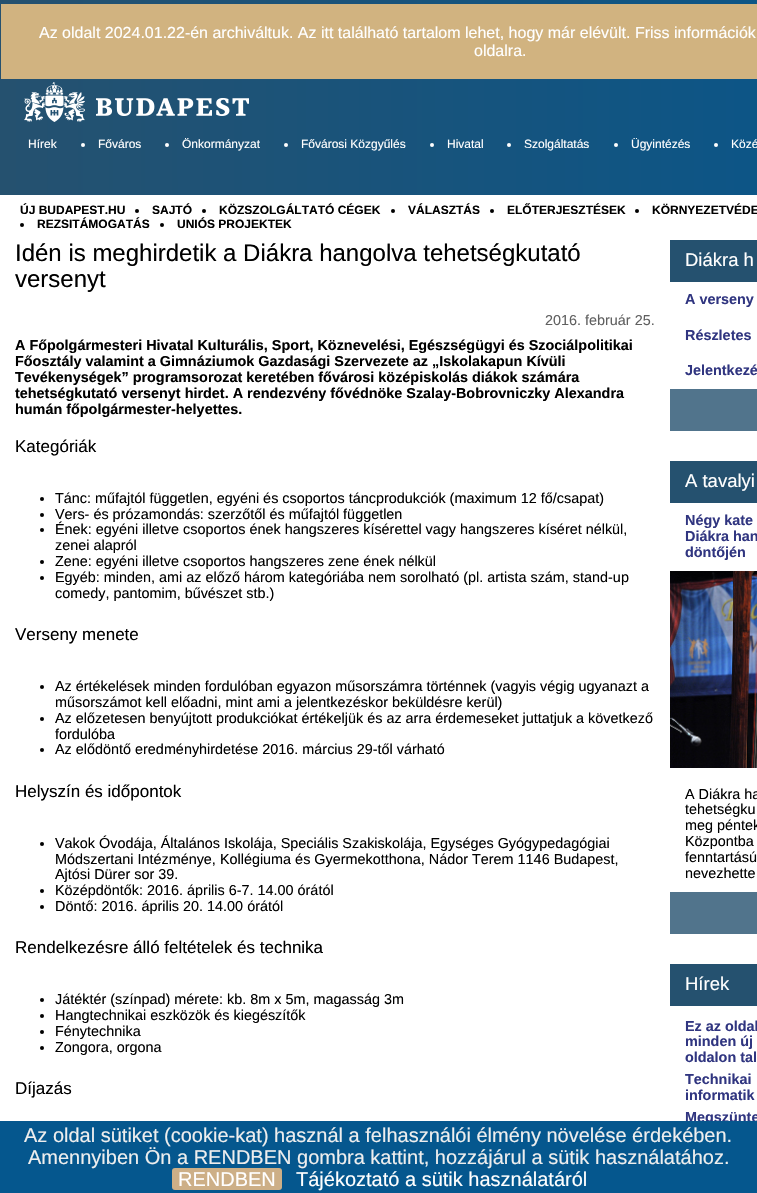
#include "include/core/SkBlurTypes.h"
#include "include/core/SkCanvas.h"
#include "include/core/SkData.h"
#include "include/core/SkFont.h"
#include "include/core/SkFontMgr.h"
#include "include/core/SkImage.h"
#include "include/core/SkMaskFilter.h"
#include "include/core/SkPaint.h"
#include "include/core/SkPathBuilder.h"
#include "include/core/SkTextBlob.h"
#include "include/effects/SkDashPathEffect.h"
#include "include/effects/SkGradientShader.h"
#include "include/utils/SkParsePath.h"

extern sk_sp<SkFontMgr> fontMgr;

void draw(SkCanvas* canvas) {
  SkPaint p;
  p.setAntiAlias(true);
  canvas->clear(SK_ColorWHITE);
  {
    const SkColor colors[] = {SkColorSetRGB(37, 81, 111), SkColorSetRGB(5, 87, 142)};
    const float stops[] = {0, 1};
    const SkPoint ends[] = {{0, 98}, {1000, 97}};
    p.setShader(SkGradientShader::MakeLinear(ends, colors, stops, 2, SkTileMode::kClamp));
    p.setAlpha(255);
  }
  canvas->drawRect(SkRect::MakeLTRB(0, 0, 757, 195), p);
  p.setShader(nullptr);
  p.setColor(SkColorSetRGB(209, 179, 128));
  canvas->drawRect(SkRect::MakeLTRB(1, 4, 757, 79), p);
  canvas->drawImageRect(SkImages::DeferredFromEncodedData(SkData::MakeFromFileName("images/1.png")), SkRect::MakeLTRB(24, 82, 249, 122), SkSamplingOptions());
  p.setColor(SK_ColorWHITE);
  canvas->drawCircle(83, 145, 2, p);
  canvas->drawCircle(167, 145, 2, p);
  canvas->drawCircle(286, 145, 2, p);
  canvas->drawCircle(432, 145, 2, p);
  canvas->drawCircle(509, 145, 2, p);
  canvas->drawCircle(616, 145, 2, p);
  canvas->drawCircle(716, 145, 2, p);
  p.setColor(SK_ColorBLACK);
  canvas->drawCircle(137, 211, 2, p);
  canvas->drawCircle(204, 211, 2, p);
  canvas->drawCircle(393, 211, 2, p);
  canvas->drawCircle(492, 211, 2, p);
  canvas->drawCircle(637, 211, 2, p);
  canvas->drawCircle(22, 225, 2, p);
  canvas->drawCircle(162, 225, 2, p);
  canvas->drawCircle(42, 499, 2, p);
  canvas->drawCircle(42, 515, 2, p);
  canvas->drawCircle(42, 530, 2, p);
  canvas->drawCircle(42, 562, 2, p);
  canvas->drawCircle(42, 578, 2, p);
  canvas->drawCircle(42, 687, 2, p);
  canvas->drawCircle(42, 719, 2, p);
  canvas->drawCircle(42, 750, 2, p);
  canvas->drawCircle(42, 844, 2, p);
  canvas->drawCircle(42, 891, 2, p);
  canvas->drawCircle(42, 907, 2, p);
  canvas->drawCircle(42, 1000, 2, p);
  canvas->drawCircle(42, 1016, 2, p);
  canvas->drawCircle(42, 1032, 2, p);
  canvas->drawCircle(42, 1048, 2, p);
  p.setColor(SkColorSetRGB(37, 81, 111));
  canvas->drawRect(SkRect::MakeLTRB(670, 240, 757, 282), p);
  p.setColor(SkColorSetRGB(81, 116, 140));
  canvas->drawRect(SkRect::MakeLTRB(670, 389, 757, 431), p);
  p.setColor(SkColorSetRGB(37, 81, 111));
  canvas->drawRect(SkRect::MakeLTRB(670, 461, 757, 503), p);
  canvas->drawImageRect(SkImages::DeferredFromEncodedData(SkData::MakeFromFileName("images/2.png")), SkRect::MakeLTRB(670, 571, 757, 768), SkSamplingOptions());
  p.setColor(SkColorSetRGB(81, 116, 140));
  canvas->drawRect(SkRect::MakeLTRB(670, 892, 757, 934), p);
  p.setColor(SkColorSetRGB(37, 81, 111));
  canvas->drawRect(SkRect::MakeLTRB(670, 964, 757, 1006), p);
  SkFont font1(fontMgr->matchFamilyStyle("Liberation Sans", SkFontStyle::Normal()), 16);
  font1.setSubpixel(true);
  p.setColor(SK_ColorWHITE);
  canvas->drawString("Az oldalt 2024.01.22-én archiváltuk. Az itt található tartalom lehet, hogy már elévült. Friss információk", 39, 38, font1, p);
  canvas->drawString("oldalra.", 474, 56, font1, p);
  SkFont font2(fontMgr->matchFamilyStyle("Liberation Sans", SkFontStyle::Normal()), 12);
  font2.setSubpixel(true);
  canvas->drawString("Hírek", 28, 148, font2, p);
  canvas->drawString("Főváros", 98, 148, font2, p);
  canvas->drawString("Önkormányzat", 182, 148, font2, p);
  canvas->drawString("Fővárosi Közgyűlés", 301, 148, font2, p);
  canvas->drawString("Hivatal", 447, 148, font2, p);
  canvas->drawString("Szolgáltatás", 524, 148, font2, p);
  canvas->drawString("Ügyintézés", 631, 148, font2, p);
  canvas->drawString("Közé", 731, 148, font2, p);
  SkFont font3(fontMgr->matchFamilyStyle("Liberation Sans", SkFontStyle::Bold()), 12);
  font3.setSubpixel(true);
  p.setColor(SK_ColorBLACK);
  canvas->drawString("ÚJ BUDAPEST.HU", 20, 214, font3, p);
  canvas->drawString("SAJTÓ", 152, 214, font3, p);
  canvas->drawString("KÖZSZOLGÁLTATÓ CÉGEK", 219, 214, font3, p);
  canvas->drawString("VÁLASZTÁS", 408, 214, font3, p);
  canvas->drawString("ELŐTERJESZTÉSEK", 507, 214, font3, p);
  canvas->drawString("KÖRNYEZETVÉDE", 652, 214, font3, p);
  canvas->drawString("REZSITÁMOGATÁS", 37, 228, font3, p);
  canvas->drawString("UNIÓS PROJEKTEK", 177, 228, font3, p);
  SkFont font4(fontMgr->matchFamilyStyle("Liberation Sans", SkFontStyle::Normal()), 24);
  font4.setSubpixel(true);
  canvas->drawString("Idén is meghirdetik a Diákra hangolva tehetségkutató", 15, 261, font4, p);
  canvas->drawString("versenyt", 15, 287, font4, p);
  SkFont font5(fontMgr->matchFamilyStyle("Liberation Sans", SkFontStyle::Normal()), 14.4f);
  font5.setSubpixel(true);
  p.setColor(SkColorSetRGB(96, 96, 96));
  canvas->drawString("2016. február 25.", 545, 325, font5, p);
  SkFont font6(fontMgr->matchFamilyStyle("Liberation Sans", SkFontStyle::Bold()), 14.4f);
  font6.setSubpixel(true);
  p.setColor(SK_ColorBLACK);
  canvas->drawString("A Főpolgármesteri Hivatal Kulturális, Sport, Köznevelési, Egészségügyi és Szociálpolitikai", 15, 350, font6, p);
  canvas->drawString("Főosztály valamint a Gimnáziumok Gazdasági Szervezete az „Iskolakapun Kívüli", 15, 366, font6, p);
  canvas->drawString("Tevékenységek” programsorozat keretében fővárosi középiskolás diákok számára", 15, 382, font6, p);
  canvas->drawString("tehetségkutató versenyt hirdet. A rendezvény fővédnöke Szalay-Bobrovniczky Alexandra", 15, 398, font6, p);
  canvas->drawString("humán főpolgármester-helyettes.", 15, 414, font6, p);
  SkFont font7(fontMgr->matchFamilyStyle("Liberation Sans", SkFontStyle::Normal()), 17);
  font7.setSubpixel(true);
  canvas->drawString("Kategóriák", 15, 452, font7, p);
  canvas->drawString("Tánc: műfajtól független, egyéni és csoportos táncprodukciók (maximum 12 fő/csapat)", 55, 503, font5, p);
  canvas->drawString("Vers- és prózamondás: szerzőtől és műfajtól független", 55, 519, font5, p);
  canvas->drawString("Ének: egyéni illetve csoportos ének hangszeres kísérettel vagy hangszeres kíséret nélkül,", 55, 534, font5, p);
  canvas->drawString("zenei alapról", 55, 550, font5, p);
  canvas->drawString("Zene: egyéni illetve csoportos hangszeres zene ének nélkül", 55, 566, font5, p);
  canvas->drawString("Egyéb: minden, ami az előző három kategóriába nem sorolható (pl. artista szám, stand-up", 55, 582, font5, p);
  canvas->drawString("comedy, pantomim, bűvészet stb.)", 55, 598, font5, p);
  canvas->drawString("Verseny menete", 15, 640, font7, p);
  canvas->drawString("Az értékelések minden fordulóban egyazon műsorszámra történnek (vagyis végig ugyanazt a", 55, 691, font5, p);
  canvas->drawString("műsorszámot kell előadni, mint ami a jelentkezéskor beküldésre kerül)", 55, 707, font5, p);
  canvas->drawString("Az előzetesen benyújtott produkciókat értékeljük és az arra érdemeseket juttatjuk a következő", 55, 723, font5, p);
  canvas->drawString("fordulóba", 55, 739, font5, p);
  canvas->drawString("Az elődöntő eredményhirdetése 2016. március 29-től várható", 55, 754, font5, p);
  canvas->drawString("Helyszín és időpontok", 15, 797, font7, p);
  canvas->drawString("Vakok Óvodája, Általános Iskolája, Speciális Szakiskolája, Egységes Gyógypedagógiai", 55, 848, font5, p);
  canvas->drawString("Módszertani Intézménye, Kollégiuma és Gyermekotthona, Nádor Terem 1146 Budapest,", 55, 864, font5, p);
  canvas->drawString("Ajtósi Dürer sor 39.", 55, 879, font5, p);
  canvas->drawString("Középdöntők: 2016. április 6-7. 14.00 órától", 55, 895, font5, p);
  canvas->drawString("Döntő: 2016. április 20. 14.00 órától", 55, 911, font5, p);
  canvas->drawString("Rendelkezésre álló feltételek és technika", 15, 953, font7, p);
  canvas->drawString("Játéktér (színpad) mérete: kb. 8m x 5m, magasság 3m", 55, 1004, font5, p);
  canvas->drawString("Hangtechnikai eszközök és kiegészítők", 55, 1020, font5, p);
  canvas->drawString("Fénytechnika", 55, 1036, font5, p);
  canvas->drawString("Zongora, orgona", 55, 1052, font5, p);
  canvas->drawString("Díjazás", 15, 1094, font7, p);
  SkFont font8(fontMgr->matchFamilyStyle("Liberation Sans", SkFontStyle::Normal()), 18.5f);
  font8.setSubpixel(true);
  p.setColor(SK_ColorWHITE);
  canvas->drawString("Diákra h", 685, 266, font8, p);
  p.setColor(SkColorSetRGB(48, 53, 128));
  canvas->drawString("A verseny", 685, 304, font6, p);
  canvas->drawString("Részletes", 685, 340, font6, p);
  canvas->drawString("Jelentkezé", 685, 375, font6, p);
  p.setColor(SK_ColorWHITE);
  canvas->drawString("A tavalyi", 685, 487, font8, p);
  p.setColor(SkColorSetRGB(48, 53, 128));
  canvas->drawString("Négy kate", 685, 525, font6, p);
  canvas->drawString("Diákra han", 685, 541, font6, p);
  canvas->drawString("döntőjén", 685, 557, font6, p);
  p.setColor(SK_ColorBLACK);
  canvas->drawString("A Diákra ha", 685, 799, font5, p);
  canvas->drawString("tehetségku", 685, 814, font5, p);
  canvas->drawString("meg péntek", 685, 830, font5, p);
  canvas->drawString("Központba", 685, 846, font5, p);
  canvas->drawString("fenntartású", 685, 862, font5, p);
  canvas->drawString("nevezhette", 685, 878, font5, p);
  p.setColor(SK_ColorWHITE);
  canvas->drawString("Hírek", 685, 990, font8, p);
  p.setColor(SkColorSetRGB(48, 53, 128));
  canvas->drawString("Ez az oldal", 685, 1031, font6, p);
  canvas->drawString("minden új", 685, 1046, font6, p);
  canvas->drawString("oldalon tal", 685, 1062, font6, p);
  canvas->drawString("Technikai", 685, 1084, font6, p);
  canvas->drawString("informatik", 685, 1100, font6, p);
  canvas->drawString("Megszünte", 685, 1122, font6, p);
  p.setColor(SkColorSetRGB(5, 87, 142));
  canvas->drawRect(SkRect::MakeLTRB(0, 1121, 757, 1193), p);
  SkFont font9(fontMgr->matchFamilyStyle("Liberation Sans", SkFontStyle::Normal()), 20);
  font9.setSubpixel(true);
  p.setColor(SkColorSetRGB(238, 238, 238));
  canvas->drawString("Az oldal sütiket (cookie-kat) használ a felhasználói élmény növelése érdekében.", 24, 1142, font9, p);
  canvas->drawString("Amennyiben Ön a RENDBEN gombra kattint, hozzájárul a sütik használatához.", 28, 1164, font9, p);
  p.setColor(SkColorSetRGB(205, 175, 135));
  canvas->drawRoundRect(SkRect::MakeLTRB(172, 1168, 282, 1190), 3, 3, p);
  p.setColor(SK_ColorWHITE);
  canvas->drawString("RENDBEN", 178, 1186, font9, p);
  canvas->drawString("Tájékoztató a sütik használatáról", 296, 1186, font9, p);
}
